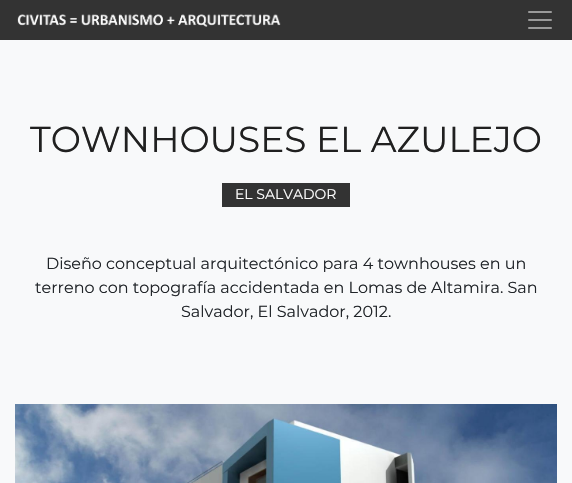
#include "include/core/SkBlurTypes.h"
#include "include/core/SkCanvas.h"
#include "include/core/SkData.h"
#include "include/core/SkFont.h"
#include "include/core/SkFontMgr.h"
#include "include/core/SkImage.h"
#include "include/core/SkMaskFilter.h"
#include "include/core/SkPaint.h"
#include "include/core/SkPathBuilder.h"
#include "include/core/SkTextBlob.h"
#include "include/effects/SkDashPathEffect.h"
#include "include/effects/SkGradientShader.h"
#include "include/utils/SkParsePath.h"

extern sk_sp<SkFontMgr> fontMgr;

void draw(SkCanvas* canvas) {
  SkPaint p;
  p.setAntiAlias(true);
  canvas->clear(SkColorSetRGB(248, 249, 250));
  p.setColor(SkColorSetRGB(51, 51, 51));
  canvas->drawRect(SkRect::MakeLTRB(0, 0, 572, 40), p);
  canvas->drawImageRect(SkImages::DeferredFromEncodedData(SkData::MakeFromFileName("images/1.png")), SkRect::MakeLTRB(17, 14, 281, 27), SkSamplingOptions());
  canvas->drawImageRect(SkImages::DeferredFromEncodedData(SkData::MakeFromFileName("images/2.png")), SkRect::MakeLTRB(528, 11, 552, 29), SkSamplingOptions());
  canvas->drawRect(SkRect::MakeLTRB(222, 183, 350, 207), p);
  canvas->drawImageRect(SkImages::DeferredFromEncodedData(SkData::MakeFromFileName("images/3.png")), SkRect::MakeLTRB(15, 404, 557, 483), SkSamplingOptions());
  SkFont font1(fontMgr->matchFamilyStyle("Montserrat", SkFontStyle::Normal()), 36);
  font1.setSubpixel(true);
  p.setColor(SkColorSetRGB(32, 32, 32));
  canvas->drawString("TOWNHOUSES EL AZULEJO", 30, 152, font1, p);
  SkFont font2(fontMgr->matchFamilyStyle("Montserrat", SkFontStyle::Normal()), 14);
  font2.setSubpixel(true);
  p.setColor(SK_ColorWHITE);
  canvas->drawString("EL SALVADOR", 235, 199, font2, p);
  SkFont font3(fontMgr->matchFamilyStyle("Montserrat", SkFontStyle::Normal()), 16);
  font3.setSubpixel(true);
  p.setColor(SkColorSetRGB(33, 37, 41));
  canvas->drawString("Diseño conceptual arquitectónico para 4 townhouses en un", 46, 269, font3, p);
  canvas->drawString("terreno con topografía accidentada en Lomas de Altamira. San", 35, 293, font3, p);
  canvas->drawString("Salvador, El Salvador, 2012.", 181, 317, font3, p);
}
